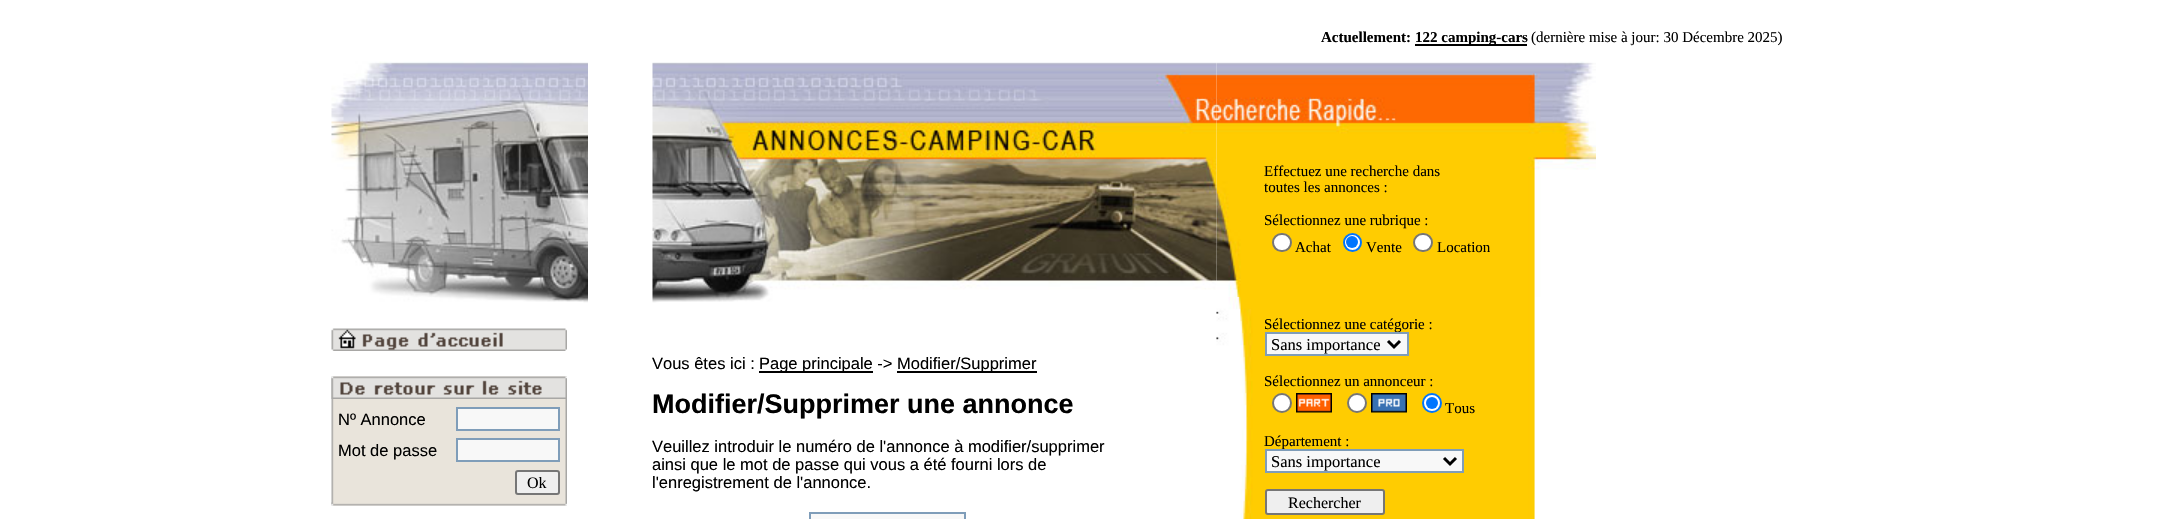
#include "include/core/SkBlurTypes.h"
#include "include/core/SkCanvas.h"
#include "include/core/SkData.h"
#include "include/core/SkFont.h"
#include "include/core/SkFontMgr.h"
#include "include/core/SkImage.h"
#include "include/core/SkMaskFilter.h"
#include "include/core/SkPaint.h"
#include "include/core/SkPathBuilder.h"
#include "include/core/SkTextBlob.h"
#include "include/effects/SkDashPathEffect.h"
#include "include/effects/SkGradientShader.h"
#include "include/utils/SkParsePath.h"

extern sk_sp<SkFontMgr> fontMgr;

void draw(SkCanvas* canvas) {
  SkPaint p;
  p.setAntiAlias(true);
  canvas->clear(SK_ColorWHITE);
  p.setColor(SK_ColorBLACK);
  canvas->drawRect(SkRect::MakeLTRB(1415, 44, 1527, 46), p);
  canvas->drawImageRect(SkImages::DeferredFromEncodedData(SkData::MakeFromFileName("images/1.png")), SkRect::MakeLTRB(331, 61, 588, 303), SkSamplingOptions());
  canvas->drawImageRect(SkImages::DeferredFromEncodedData(SkData::MakeFromFileName("images/2.png")), SkRect::MakeLTRB(331, 328, 567, 351), SkSamplingOptions());
  canvas->drawImageRect(SkImages::DeferredFromEncodedData(SkData::MakeFromFileName("images/3.png")), SkRect::MakeLTRB(331, 376, 567, 506), SkSamplingOptions());
  canvas->drawImageRect(SkImages::DeferredFromEncodedData(SkData::MakeFromFileName("images/4.png")), SkRect::MakeLTRB(331, 376, 567, 399), SkSamplingOptions());
  p.setColor(SkColorSetRGB(248, 248, 248));
  canvas->drawRect(SkRect::MakeLTRB(457, 408, 559, 430), p);
  p.setStyle(SkPaint::kStroke_Style);
  p.setStrokeWidth(2);
  p.setColor(SkColorSetRGB(127, 157, 185));
  canvas->drawRect(SkRect::MakeLTRB(457, 408, 559, 430), p);
  p.setStyle(SkPaint::kFill_Style);
  p.setColor(SkColorSetRGB(248, 248, 248));
  canvas->drawRect(SkRect::MakeLTRB(457, 439, 559, 461), p);
  p.setStyle(SkPaint::kStroke_Style);
  p.setColor(SkColorSetRGB(127, 157, 185));
  canvas->drawRect(SkRect::MakeLTRB(457, 439, 559, 461), p);
  p.setStyle(SkPaint::kFill_Style);
  p.setColor(SkColorSetRGB(239, 239, 239));
  canvas->drawRoundRect(SkRect::MakeLTRB(516, 471, 559, 494), 2, 2, p);
  p.setStyle(SkPaint::kStroke_Style);
  p.setColor(SkColorSetRGB(118, 118, 118));
  canvas->drawRoundRect(SkRect::MakeLTRB(516, 471, 559, 494), 2, 2, p);
  canvas->drawImageRect(SkImages::DeferredFromEncodedData(SkData::MakeFromFileName("images/5.png")), SkRect::MakeLTRB(331, 502, 567, 506), SkSamplingOptions());
  canvas->drawImageRect(SkImages::DeferredFromEncodedData(SkData::MakeFromFileName("images/7.png")), SkRect::MakeLTRB(1216, 61, 1596, 297), SkSamplingOptions());
  canvas->drawImageRect(SkImages::DeferredFromEncodedData(SkData::MakeFromFileName("images/8.png")), SkRect::MakeLTRB(1216, 297, 1535, 519), SkSamplingOptions());
  canvas->drawImageRect(SkImages::DeferredFromEncodedData(SkData::MakeFromFileName("images/6.png")), SkRect::MakeLTRB(652, 62, 1217, 303), SkSamplingOptions());
  p.setStyle(SkPaint::kFill_Style);
  p.setColor(SK_ColorBLACK);
  canvas->drawRect(SkRect::MakeLTRB(759, 371, 873, 373), p);
  canvas->drawRect(SkRect::MakeLTRB(897, 371, 1037, 373), p);
  p.setColor(SkColorSetRGB(248, 248, 248));
  canvas->drawRect(SkRect::MakeLTRB(810, 513, 965, 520), p);
  p.setStyle(SkPaint::kStroke_Style);
  p.setColor(SkColorSetRGB(127, 157, 185));
  canvas->drawRect(SkRect::MakeLTRB(810, 513, 965, 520), p);
  p.setStyle(SkPaint::kFill_Style);
  p.setColor(SK_ColorWHITE);
  canvas->drawRoundRect(SkRect::MakeLTRB(1273, 234, 1291, 251), 8.5f, 8.5f, p);
  p.setStyle(SkPaint::kStroke_Style);
  p.setColor(SkColorSetRGB(118, 118, 118));
  canvas->drawRoundRect(SkRect::MakeLTRB(1273, 234, 1291, 251), 8.5f, 8.5f, p);
  p.setStyle(SkPaint::kFill_Style);
  p.setColor(SK_ColorWHITE);
  canvas->drawCircle(1352.5f, 242.5f, 8.5f, p);
  p.setStyle(SkPaint::kStroke_Style);
  p.setColor(SkColorSetRGB(0, 117, 255));
  canvas->drawCircle(1352.5f, 242.5f, 8.5f, p);
  p.setStyle(SkPaint::kFill_Style);
  canvas->drawCircle(1352, 242, 6, p);
  p.setColor(SK_ColorWHITE);
  canvas->drawRoundRect(SkRect::MakeLTRB(1414, 234, 1432, 251), 8.5f, 8.5f, p);
  p.setStyle(SkPaint::kStroke_Style);
  p.setColor(SkColorSetRGB(118, 118, 118));
  canvas->drawRoundRect(SkRect::MakeLTRB(1414, 234, 1432, 251), 8.5f, 8.5f, p);
  p.setStyle(SkPaint::kFill_Style);
  p.setColor(SK_ColorWHITE);
  canvas->drawCircle(1282, 403, 9, p);
  p.setStyle(SkPaint::kStroke_Style);
  p.setColor(SkColorSetRGB(118, 118, 118));
  canvas->drawCircle(1282, 403, 9, p);
  canvas->drawImageRect(SkImages::DeferredFromEncodedData(SkData::MakeFromFileName("images/9.png")), SkRect::MakeLTRB(1296, 393, 1332, 413), SkSamplingOptions());
  p.setStyle(SkPaint::kFill_Style);
  p.setColor(SK_ColorWHITE);
  canvas->drawCircle(1357, 403, 9, p);
  p.setStyle(SkPaint::kStroke_Style);
  p.setColor(SkColorSetRGB(118, 118, 118));
  canvas->drawCircle(1357, 403, 9, p);
  canvas->drawImageRect(SkImages::DeferredFromEncodedData(SkData::MakeFromFileName("images/10.png")), SkRect::MakeLTRB(1371, 393, 1407, 413), SkSamplingOptions());
  p.setStyle(SkPaint::kFill_Style);
  p.setColor(SK_ColorWHITE);
  canvas->drawCircle(1432, 403, 9, p);
  p.setStyle(SkPaint::kStroke_Style);
  p.setColor(SkColorSetRGB(0, 117, 255));
  canvas->drawCircle(1432, 403, 9, p);
  p.setStyle(SkPaint::kFill_Style);
  canvas->drawCircle(1432, 403, 6, p);
  p.setColor(SkColorSetRGB(239, 239, 239));
  canvas->drawRoundRect(SkRect::MakeLTRB(1266, 490, 1384, 514), 2, 2, p);
  p.setStyle(SkPaint::kStroke_Style);
  p.setColor(SkColorSetRGB(118, 118, 118));
  canvas->drawRoundRect(SkRect::MakeLTRB(1266, 490, 1384, 514), 2, 2, p);
  SkFont font1(fontMgr->matchFamilyStyle("Liberation Serif", SkFontStyle::Bold()), 15);
  font1.setSubpixel(true);
  p.setStyle(SkPaint::kFill_Style);
  p.setColor(SK_ColorBLACK);
  canvas->drawString("Actuellement:", 1321, 42, font1, p);
  canvas->drawString("122 camping-cars", 1415, 42, font1, p);
  SkFont font2(fontMgr->matchFamilyStyle("Liberation Serif", SkFontStyle::Normal()), 15);
  font2.setSubpixel(true);
  canvas->drawString("(dernière mise à jour: 30 Décembre 2025)", 1531, 42, font2, p);
  SkFont font3(fontMgr->matchFamilyStyle("Liberation Sans", SkFontStyle::Normal()), 16.5f);
  font3.setSubpixel(true);
  canvas->drawString("Nº Annonce", 338, 425, font3, p);
  canvas->drawString("Mot de passe", 338, 456, font3, p);
  SkFont font4(fontMgr->matchFamilyStyle("Liberation Serif", SkFontStyle::Normal()), 16);
  font4.setSubpixel(true);
  canvas->drawString("Ok", 527, 488, font4, p);
  canvas->drawString("Vous êtes ici :", 652, 369, font3, p);
  canvas->drawString("Page principale ->", 759, 369, font3, p);
  canvas->drawString("Modifier/Supprimer", 897, 369, font3, p);
  SkFont font5(fontMgr->matchFamilyStyle("Liberation Sans", SkFontStyle::Bold()), 27);
  font5.setSubpixel(true);
  canvas->drawString("Modifier/Supprimer une annonce", 652, 413, font5, p);
  canvas->drawString("Veuillez introduir le numéro de l'annonce à modifier/supprimer", 652, 452, font3, p);
  canvas->drawString("ainsi que le mot de passe qui vous a été fourni lors de", 652, 470, font3, p);
  canvas->drawString("l'enregistrement de l'annonce.", 652, 488, font3, p);
  canvas->drawString("Effectuez une recherche dans", 1264, 176, font2, p);
  canvas->drawString("toutes les annonces :", 1264, 192, font2, p);
  canvas->drawString("Sélectionnez une rubrique :", 1264, 225, font2, p);
  canvas->drawString("Achat", 1295, 252, font2, p);
  canvas->drawString("Vente", 1366, 252, font2, p);
  canvas->drawString("Location", 1437, 252, font2, p);
  canvas->drawString("Sélectionnez une catégorie :", 1264, 329, font2, p);
  p.setColor(SkColorSetRGB(248, 248, 248));
  canvas->drawRect(SkRect::MakeLTRB(1266, 333, 1408, 355), p);
  p.setStyle(SkPaint::kStroke_Style);
  p.setColor(SkColorSetRGB(127, 157, 185));
  canvas->drawRect(SkRect::MakeLTRB(1266, 333, 1408, 355), p);
  p.setStrokeWidth(3);
  p.setColor(SK_ColorBLACK);
  canvas->drawPath(SkPathBuilder().moveTo(1388, 341).lineTo(1394, 347).lineTo(1400, 341).detach(), p);
  SkFont font6(fontMgr->matchFamilyStyle("Liberation Serif", SkFontStyle::Normal()), 16.5f);
  font6.setSubpixel(true);
  p.setStyle(SkPaint::kFill_Style);
  canvas->drawString("Sans importance", 1271, 350, font6, p);
  canvas->drawString("Sélectionnez un annonceur :", 1264, 386, font2, p);
  canvas->drawString("Tous", 1445, 413, font2, p);
  canvas->drawString("Département :", 1264, 446, font2, p);
  p.setColor(SkColorSetRGB(248, 248, 248));
  canvas->drawRect(SkRect::MakeLTRB(1266, 450, 1463, 472), p);
  p.setStyle(SkPaint::kStroke_Style);
  p.setStrokeWidth(2);
  p.setColor(SkColorSetRGB(127, 157, 185));
  canvas->drawRect(SkRect::MakeLTRB(1266, 450, 1463, 472), p);
  p.setStrokeWidth(3);
  p.setColor(SK_ColorBLACK);
  canvas->drawPath(SkPathBuilder().moveTo(1444, 458).lineTo(1450, 464).lineTo(1456, 458).detach(), p);
  p.setStyle(SkPaint::kFill_Style);
  canvas->drawString("Sans importance", 1271, 467, font6, p);
  canvas->drawString("Rechercher", 1288, 508, font4, p);
}
